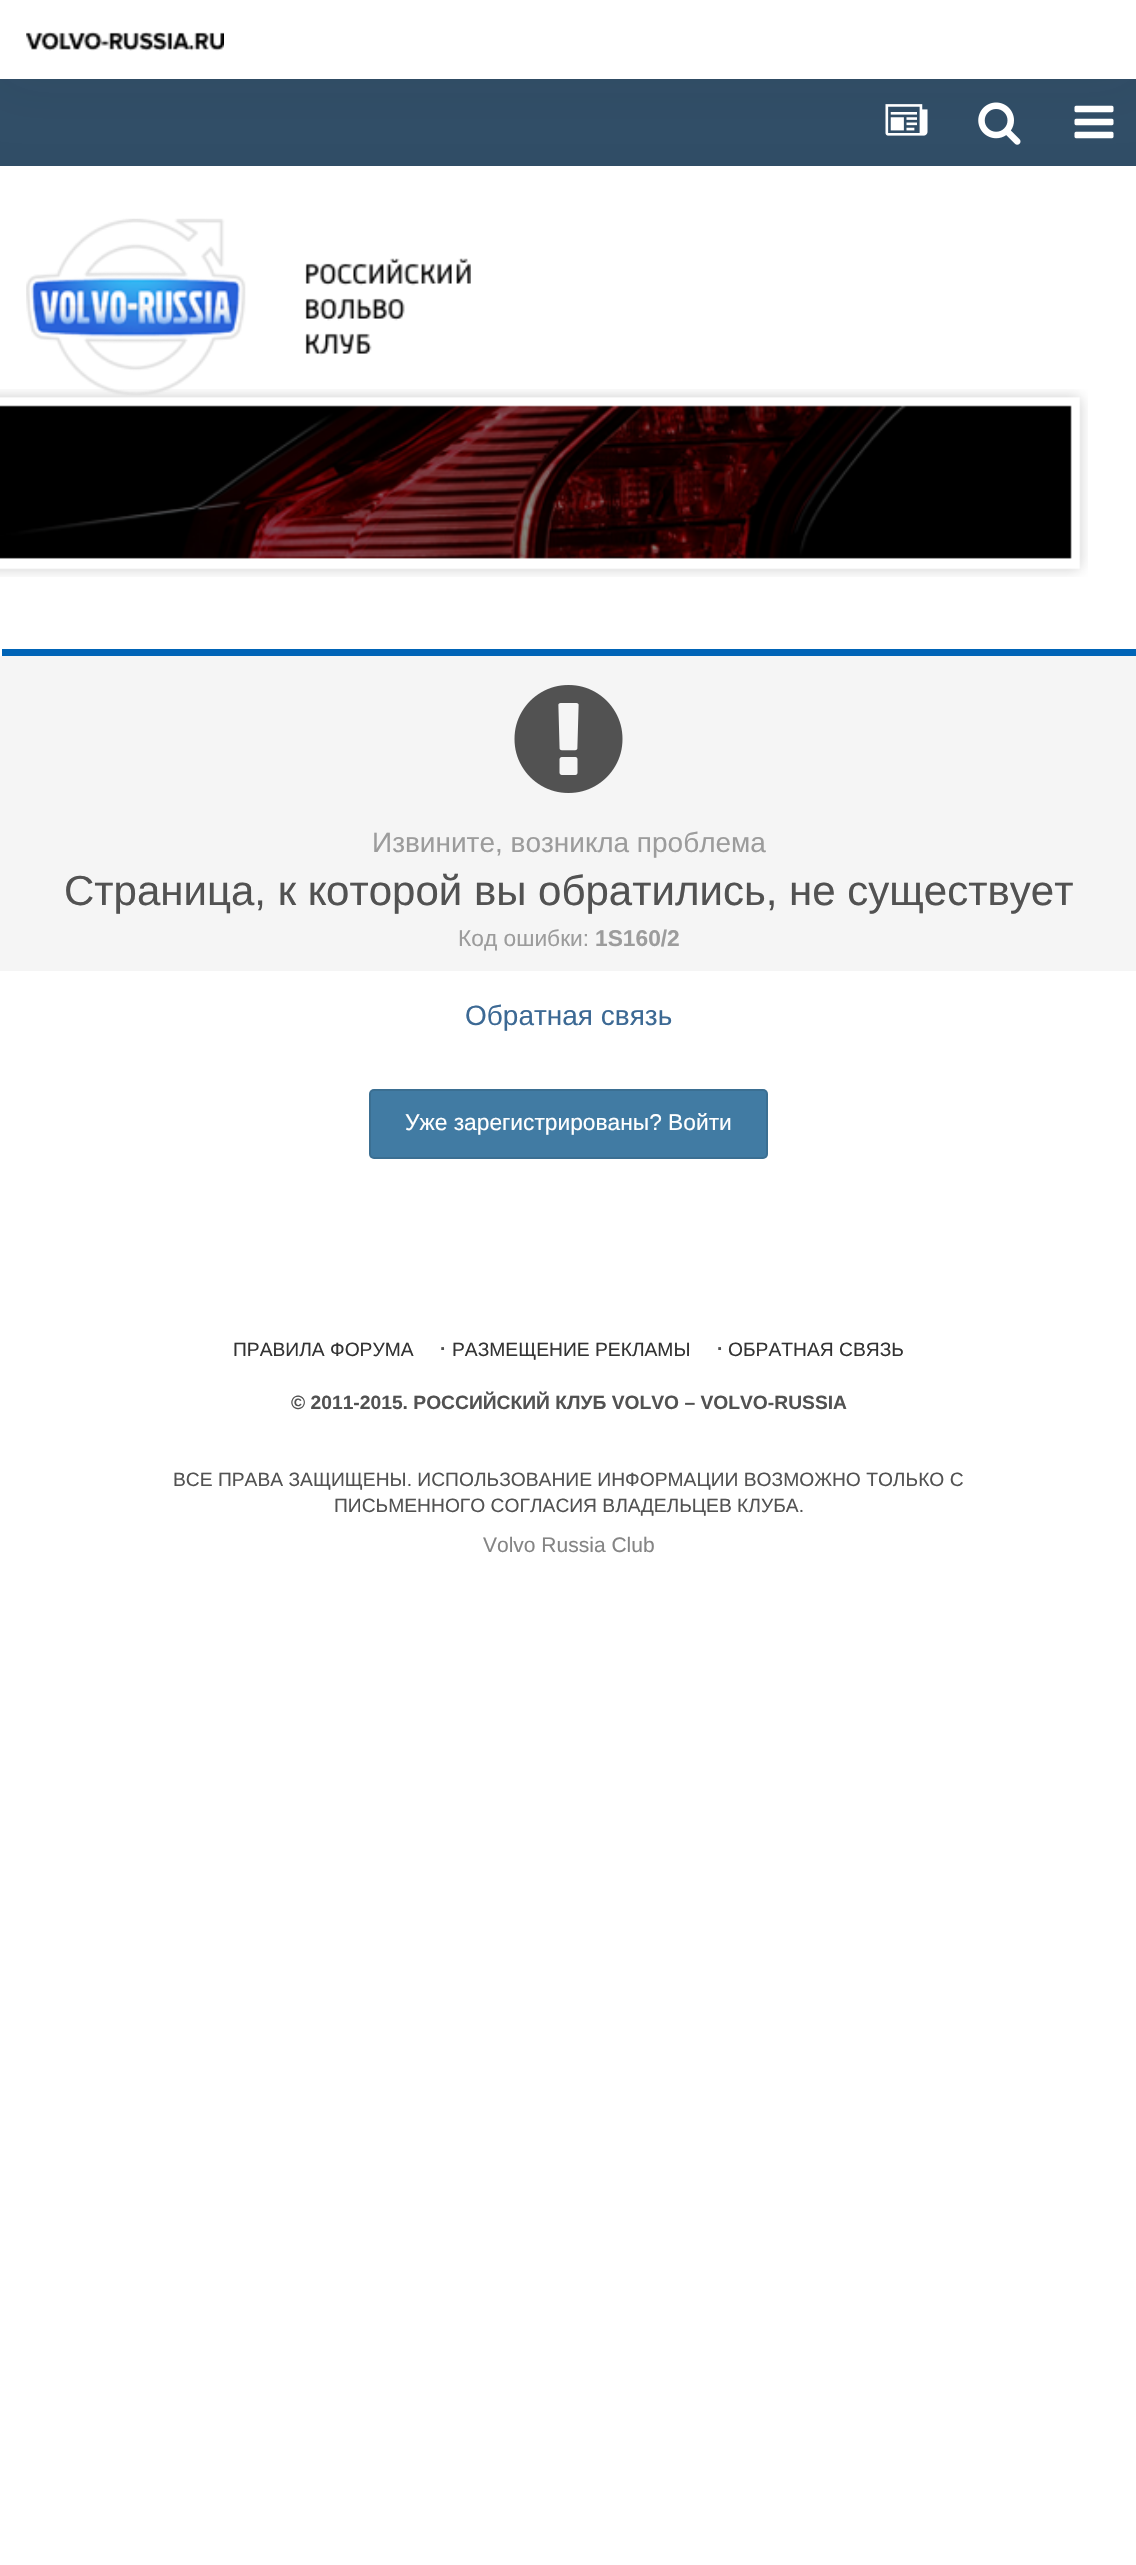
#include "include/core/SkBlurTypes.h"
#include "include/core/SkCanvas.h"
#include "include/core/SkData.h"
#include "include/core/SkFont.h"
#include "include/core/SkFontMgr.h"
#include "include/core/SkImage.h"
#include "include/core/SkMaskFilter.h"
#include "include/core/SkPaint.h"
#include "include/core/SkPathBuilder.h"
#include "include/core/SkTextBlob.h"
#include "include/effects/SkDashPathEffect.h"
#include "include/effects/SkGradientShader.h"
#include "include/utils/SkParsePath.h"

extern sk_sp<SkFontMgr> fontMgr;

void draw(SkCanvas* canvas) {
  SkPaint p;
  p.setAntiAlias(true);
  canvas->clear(SK_ColorWHITE);
  p.setColor(SkColorSetRGB(48, 77, 102));
  canvas->drawRect(SkRect::MakeLTRB(0, 79, 1136, 166), p);
  p.setColor(SkColorSetARGB(15, 50, 50, 50));
  p.setMaskFilter(SkMaskFilter::MakeBlur(kNormal_SkBlurStyle, 26));
  canvas->drawRect(SkRect::MakeLTRB(0, 4, 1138, 82), p);
  p.setMaskFilter(nullptr);
  p.setColor(SK_ColorWHITE);
  canvas->drawRect(SkRect::MakeLTRB(0, 0, 1136, 79), p);
  canvas->drawImageRect(SkImages::DeferredFromEncodedData(SkData::MakeFromFileName("images/1.png")), SkRect::MakeLTRB(26, 31, 224, 51), SkSamplingOptions());
  canvas->drawImageRect(SkImages::DeferredFromEncodedData(SkData::MakeFromFileName("images/2.png")), SkRect::MakeLTRB(885, 104, 928, 136), SkSamplingOptions());
  canvas->drawImageRect(SkImages::DeferredFromEncodedData(SkData::MakeFromFileName("images/3.png")), SkRect::MakeLTRB(978, 102, 1021, 145), SkSamplingOptions());
  canvas->drawImageRect(SkImages::DeferredFromEncodedData(SkData::MakeFromFileName("images/4.png")), SkRect::MakeLTRB(1074, 105, 1114, 139), SkSamplingOptions());
  canvas->drawImageRect(SkImages::DeferredFromEncodedData(SkData::MakeFromFileName("images/6.png")), SkRect::MakeLTRB(0, 389, 1088, 577), SkSamplingOptions());
  canvas->drawImageRect(SkImages::DeferredFromEncodedData(SkData::MakeFromFileName("images/5.png")), SkRect::MakeLTRB(26, 218, 471, 396), SkSamplingOptions());
  p.setColor(SkColorSetRGB(0, 100, 183));
  canvas->drawRect(SkRect::MakeLTRB(2, 649, 1136, 656), p);
  p.setColor(SkColorSetRGB(245, 245, 245));
  canvas->drawRect(SkRect::MakeLTRB(0, 656, 1136, 971), p);
  canvas->drawImageRect(SkImages::DeferredFromEncodedData(SkData::MakeFromFileName("images/7.png")), SkRect::MakeLTRB(514, 685, 623, 793), SkSamplingOptions());
  p.setColor(SkColorSetRGB(65, 123, 163));
  canvas->drawRoundRect(SkRect::MakeLTRB(369, 1089, 768, 1159), 5, 5, p);
  p.setStyle(SkPaint::kStroke_Style);
  p.setStrokeWidth(2);
  p.setColor(SkColorSetARGB(26, 0, 0, 0));
  canvas->drawRoundRect(SkRect::MakeLTRB(370, 1090, 767, 1158), 4, 4, p);
  SkFont font1(fontMgr->matchFamilyStyle("Liberation Sans", SkFontStyle::Normal()), 28);
  font1.setSubpixel(true);
  p.setStyle(SkPaint::kFill_Style);
  p.setColor(SkColorSetRGB(156, 156, 156));
  canvas->drawString("Извините, возникла проблема", 372, 852, font1, p);
  SkFont font2(fontMgr->matchFamilyStyle("Liberation Sans", SkFontStyle::Normal()), 42);
  font2.setSubpixel(true);
  p.setColor(SkColorSetRGB(82, 82, 82));
  canvas->drawString("Страница, к которой вы обратились, не существует", 64, 905, font2, p);
  SkFont font3(fontMgr->matchFamilyStyle("Liberation Sans", SkFontStyle::Normal()), 22.75f);
  font3.setSubpixel(true);
  p.setColor(SkColorSetRGB(156, 156, 156));
  canvas->drawString("Код ошибки:", 458, 946, font3, p);
  SkFont font4(fontMgr->matchFamilyStyle("Liberation Sans", SkFontStyle::Bold()), 22.75f);
  font4.setSubpixel(true);
  canvas->drawString("1S160/2", 595, 946, font4, p);
  p.setColor(SkColorSetRGB(60, 105, 148));
  canvas->drawString("Обратная связь", 465, 1025, font1, p);
  p.setColor(SK_ColorWHITE);
  canvas->drawString("Уже зарегистрированы? Войти", 405, 1130, font3, p);
  SkFont font5(fontMgr->matchFamilyStyle("Liberation Sans", SkFontStyle::Normal()), 19.25f);
  font5.setSubpixel(true);
  p.setColor(SkColorSetRGB(51, 51, 51));
  canvas->drawString("ПРАВИЛА ФОРУМА", 233, 1356, font5, p);
  SkFont font6(fontMgr->matchFamilyStyle("Liberation Sans", SkFontStyle::Bold()), 19.25f);
  font6.setSubpixel(true);
  p.setColor(SkColorSetRGB(82, 82, 82));
  canvas->drawString("·", 440, 1355, font6, p);
  p.setColor(SkColorSetRGB(51, 51, 51));
  canvas->drawString("РАЗМЕЩЕНИЕ РЕКЛАМЫ", 452, 1356, font5, p);
  p.setColor(SkColorSetRGB(82, 82, 82));
  canvas->drawString("·", 717, 1355, font6, p);
  p.setColor(SkColorSetRGB(51, 51, 51));
  canvas->drawString("ОБРАТНАЯ СВЯЗЬ", 728, 1356, font5, p);
  p.setColor(SkColorSetRGB(82, 82, 82));
  canvas->drawString("© 2011-2015. РОССИЙСКИЙ КЛУБ VOLVO – VOLVO-RUSSIA", 291, 1409, font6, p);
  canvas->drawString("ВСЕ ПРАВА ЗАЩИЩЕНЫ. ИСПОЛЬЗОВАНИЕ ИНФОРМАЦИИ ВОЗМОЖНО ТОЛЬКО С", 173, 1486, font5, p);
  canvas->drawString("ПИСЬМЕННОГО СОГЛАСИЯ ВЛАДЕЛЬЦЕВ КЛУБА.", 334, 1512, font5, p);
  SkFont font7(fontMgr->matchFamilyStyle("Liberation Sans", SkFontStyle::Normal()), 21);
  font7.setSubpixel(true);
  p.setColor(SkColorSetRGB(133, 133, 133));
  canvas->drawString("Volvo Russia Club", 483, 1552, font7, p);
}
